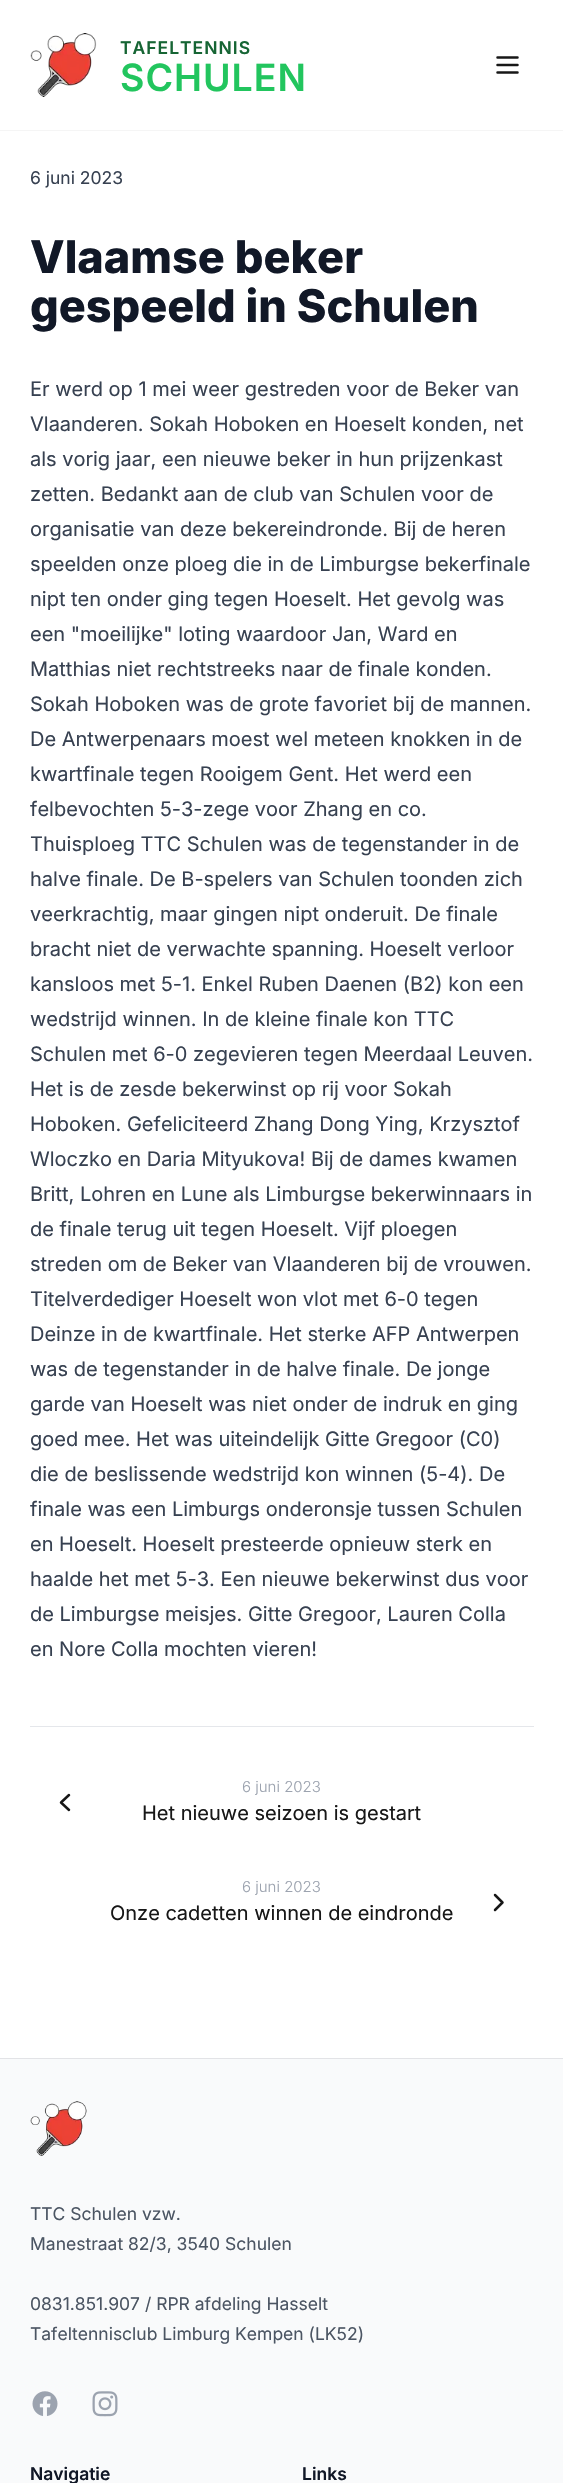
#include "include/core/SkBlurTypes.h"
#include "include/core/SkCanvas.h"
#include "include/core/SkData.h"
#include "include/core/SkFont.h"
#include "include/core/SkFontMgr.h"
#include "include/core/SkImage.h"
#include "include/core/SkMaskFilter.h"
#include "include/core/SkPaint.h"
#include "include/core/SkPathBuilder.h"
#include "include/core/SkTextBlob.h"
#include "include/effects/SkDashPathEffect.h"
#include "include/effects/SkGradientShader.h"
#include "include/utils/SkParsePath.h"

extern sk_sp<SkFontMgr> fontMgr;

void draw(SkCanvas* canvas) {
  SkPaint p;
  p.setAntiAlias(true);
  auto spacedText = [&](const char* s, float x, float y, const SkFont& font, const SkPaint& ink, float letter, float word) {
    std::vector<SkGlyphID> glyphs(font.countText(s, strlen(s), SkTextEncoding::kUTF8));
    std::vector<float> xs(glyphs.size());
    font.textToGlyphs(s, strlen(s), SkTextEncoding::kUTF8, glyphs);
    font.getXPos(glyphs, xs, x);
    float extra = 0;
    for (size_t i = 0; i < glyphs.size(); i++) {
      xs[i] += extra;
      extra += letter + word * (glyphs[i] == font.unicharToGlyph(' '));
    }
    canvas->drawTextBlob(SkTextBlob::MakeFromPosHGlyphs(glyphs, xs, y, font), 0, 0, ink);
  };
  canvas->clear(SK_ColorWHITE);
  p.setColor(SkColorSetRGB(245, 245, 245));
  canvas->drawRect(SkRect::MakeLTRB(0, 130, 563, 131), p);
  canvas->drawImageRect(SkImages::DeferredFromEncodedData(SkData::MakeFromFileName("images/1.png")), SkRect::MakeLTRB(30, 33, 97, 97), SkSamplingOptions());
  p.setStyle(SkPaint::kStroke_Style);
  p.setStrokeWidth(2.5f);
  p.setStrokeCap(SkPaint::kRound_Cap);
  p.setStrokeJoin(SkPaint::kRound_Join);
  p.setColor(SkColorSetRGB(23, 23, 23));
  canvas->drawPath(SkPathBuilder().moveTo(497.5f, 65).lineTo(517.5f, 65).moveTo(497.5f, 57.5f).lineTo(517.5f, 57.5f).moveTo(497.5f, 72.5f).lineTo(517.5f, 72.5f).detach(), p);
  p.setStyle(SkPaint::kFill_Style);
  p.setColor(SkColorSetRGB(229, 231, 235));
  canvas->drawRect(SkRect::MakeLTRB(30, 1726, 534, 1727), p);
  p.setStyle(SkPaint::kStroke_Style);
  p.setColor(SkColorSetRGB(23, 23, 23));
  canvas->drawPath(SkPathBuilder().moveTo(69, 1810).lineTo(61, 1802.5f).lineTo(69, 1795).detach(), p);
  canvas->drawPath(SkPathBuilder().moveTo(495, 1910).lineTo(502.5f, 1902.5f).lineTo(495, 1895).detach(), p);
  p.setStyle(SkPaint::kFill_Style);
  p.setColor(SkColorSetRGB(249, 250, 251));
  canvas->drawRect(SkRect::MakeLTRB(0, 2059, 563, 2483), p);
  p.setColor(SkColorSetRGB(226, 227, 230));
  canvas->drawRect(SkRect::MakeLTRB(0, 2058, 563, 2059), p);
  canvas->drawImageRect(SkImages::DeferredFromEncodedData(SkData::MakeFromFileName("images/2.png")), SkRect::MakeLTRB(30, 2101, 87, 2156), SkSamplingOptions());
  canvas->drawImageRect(SkImages::DeferredFromEncodedData(SkData::MakeFromFileName("images/3.png")), SkRect::MakeLTRB(32, 2391, 58, 2416), SkSamplingOptions());
  canvas->drawImageRect(SkImages::DeferredFromEncodedData(SkData::MakeFromFileName("images/4.png")), SkRect::MakeLTRB(92, 2391, 118, 2417), SkSamplingOptions());
  SkFont font1(fontMgr->matchFamilyStyle("Inter", SkFontStyle(600, SkFontStyle::kNormal_Width, SkFontStyle::kUpright_Slant)), 17.5f);
  font1.setSubpixel(true);
  p.setColor(SkColorSetRGB(22, 101, 52));
  spacedText("TAFELTENNIS", 120, 54, font1, p, 1, 0);
  SkFont font2(fontMgr->matchFamilyStyle("Inter", SkFontStyle(600, SkFontStyle::kNormal_Width, SkFontStyle::kUpright_Slant)), 37.5f);
  font2.setSubpixel(true);
  p.setColor(SkColorSetRGB(34, 197, 94));
  spacedText("SCHULEN", 120, 91, font2, p, 1, 0);
  SkFont font3(fontMgr->matchFamilyStyle("Inter", SkFontStyle::Normal()), 17.5f);
  font3.setSubpixel(true);
  p.setColor(SkColorSetRGB(55, 65, 81));
  canvas->drawString("6 juni 2023", 30, 184, font3, p);
  SkFont font4(fontMgr->matchFamilyStyle("Inter", SkFontStyle(800, SkFontStyle::kNormal_Width, SkFontStyle::kUpright_Slant)), 45);
  font4.setSubpixel(true);
  p.setColor(SkColorSetRGB(17, 24, 39));
  canvas->drawString("Vlaamse beker", 30, 273, font4, p);
  canvas->drawString("gespeeld in Schulen", 30, 322, font4, p);
  SkFont font5(fontMgr->matchFamilyStyle("Inter", SkFontStyle::Normal()), 20);
  font5.setSubpixel(true);
  p.setColor(SkColorSetRGB(55, 65, 81));
  canvas->drawString("Er werd op 1 mei weer gestreden voor de Beker van", 30, 396, font5, p);
  canvas->drawString("Vlaanderen. Sokah Hoboken en Hoeselt konden, net", 30, 431, font5, p);
  canvas->drawString("als vorig jaar, een nieuwe beker in hun prijzenkast", 30, 466, font5, p);
  canvas->drawString("zetten. Bedankt aan de club van Schulen voor de", 30, 501, font5, p);
  canvas->drawString("organisatie van deze bekereindronde. Bij de heren", 30, 536, font5, p);
  canvas->drawString("speelden onze ploeg die in de Limburgse bekerfinale", 30, 571, font5, p);
  canvas->drawString("nipt ten onder ging tegen Hoeselt. Het gevolg was", 30, 606, font5, p);
  canvas->drawString("een \"moeilijke\" loting waardoor Jan, Ward en", 30, 641, font5, p);
  canvas->drawString("Matthias niet rechtstreeks naar de finale konden.", 30, 676, font5, p);
  canvas->drawString("Sokah Hoboken was de grote favoriet bij de mannen.", 30, 711, font5, p);
  canvas->drawString("De Antwerpenaars moest wel meteen knokken in de", 30, 746, font5, p);
  canvas->drawString("kwartfinale tegen Rooigem Gent. Het werd een", 30, 781, font5, p);
  canvas->drawString("felbevochten 5-3-zege voor Zhang en co.", 30, 816, font5, p);
  canvas->drawString("Thuisploeg TTC Schulen was de tegenstander in de", 30, 851, font5, p);
  canvas->drawString("halve finale. De B-spelers van Schulen toonden zich", 30, 886, font5, p);
  canvas->drawString("veerkrachtig, maar gingen nipt onderuit. De finale", 30, 921, font5, p);
  canvas->drawString("bracht niet de verwachte spanning. Hoeselt verloor", 30, 956, font5, p);
  canvas->drawString("kansloos met 5-1. Enkel Ruben Daenen (B2) kon een", 30, 991, font5, p);
  canvas->drawString("wedstrijd winnen. In de kleine finale kon TTC", 30, 1026, font5, p);
  canvas->drawString("Schulen met 6-0 zegevieren tegen Meerdaal Leuven.", 30, 1061, font5, p);
  canvas->drawString("Het is de zesde bekerwinst op rij voor Sokah", 30, 1096, font5, p);
  canvas->drawString("Hoboken. Gefeliciteerd Zhang Dong Ying, Krzysztof", 30, 1131, font5, p);
  canvas->drawString("Wloczko en Daria Mityukova! Bij de dames kwamen", 30, 1166, font5, p);
  canvas->drawString("Britt, Lohren en Lune als Limburgse bekerwinnaars in", 30, 1201, font5, p);
  canvas->drawString("de finale terug uit tegen Hoeselt. Vijf ploegen", 30, 1236, font5, p);
  canvas->drawString("streden om de Beker van Vlaanderen bij de vrouwen.", 30, 1271, font5, p);
  canvas->drawString("Titelverdediger Hoeselt won vlot met 6-0 tegen", 30, 1306, font5, p);
  canvas->drawString("Deinze in de kwartfinale. Het sterke AFP Antwerpen", 30, 1341, font5, p);
  canvas->drawString("was de tegenstander in de halve finale. De jonge", 30, 1376, font5, p);
  canvas->drawString("garde van Hoeselt was niet onder de indruk en ging", 30, 1411, font5, p);
  canvas->drawString("goed mee. Het was uiteindelijk Gitte Gregoor (C0)", 30, 1446, font5, p);
  canvas->drawString("die de beslissende wedstrijd kon winnen (5-4). De", 30, 1481, font5, p);
  canvas->drawString("finale was een Limburgs onderonsje tussen Schulen", 30, 1516, font5, p);
  canvas->drawString("en Hoeselt. Hoeselt presteerde opnieuw sterk en", 30, 1551, font5, p);
  canvas->drawString("haalde het met 5-3. Een nieuwe bekerwinst dus voor", 30, 1586, font5, p);
  canvas->drawString("de Limburgse meisjes. Gitte Gregoor, Lauren Colla", 30, 1621, font5, p);
  canvas->drawString("en Nore Colla mochten vieren!", 30, 1656, font5, p);
  SkFont font6(fontMgr->matchFamilyStyle("Inter", SkFontStyle(300, SkFontStyle::kNormal_Width, SkFontStyle::kUpright_Slant)), 15);
  font6.setSubpixel(true);
  p.setColor(SkColorSetRGB(156, 163, 175));
  canvas->drawString("6 juni 2023", 242, 1792, font6, p);
  p.setColor(SkColorSetRGB(23, 23, 23));
  canvas->drawString("Het nieuwe seizoen is gestart", 142, 1820, font5, p);
  p.setColor(SkColorSetRGB(156, 163, 175));
  canvas->drawString("6 juni 2023", 242, 1892, font6, p);
  p.setColor(SkColorSetRGB(23, 23, 23));
  canvas->drawString("Onze cadetten winnen de eindronde", 110, 1920, font5, p);
  p.setColor(SkColorSetRGB(75, 85, 99));
  canvas->drawString("TTC Schulen vzw.", 30, 2220, font3, p);
  canvas->drawString("Manestraat 82/3, 3540 Schulen", 30, 2250, font3, p);
  canvas->drawString("0831.851.907 / RPR afdeling Hasselt", 30, 2310, font3, p);
  canvas->drawString("Tafeltennisclub Limburg Kempen (LK52)", 30, 2340, font3, p);
  p.setColor(SkColorSetRGB(17, 24, 39));
  canvas->drawString("Navigatie", 30, 2480, font1, p);
  canvas->drawString("Links", 302, 2480, font1, p);
}
